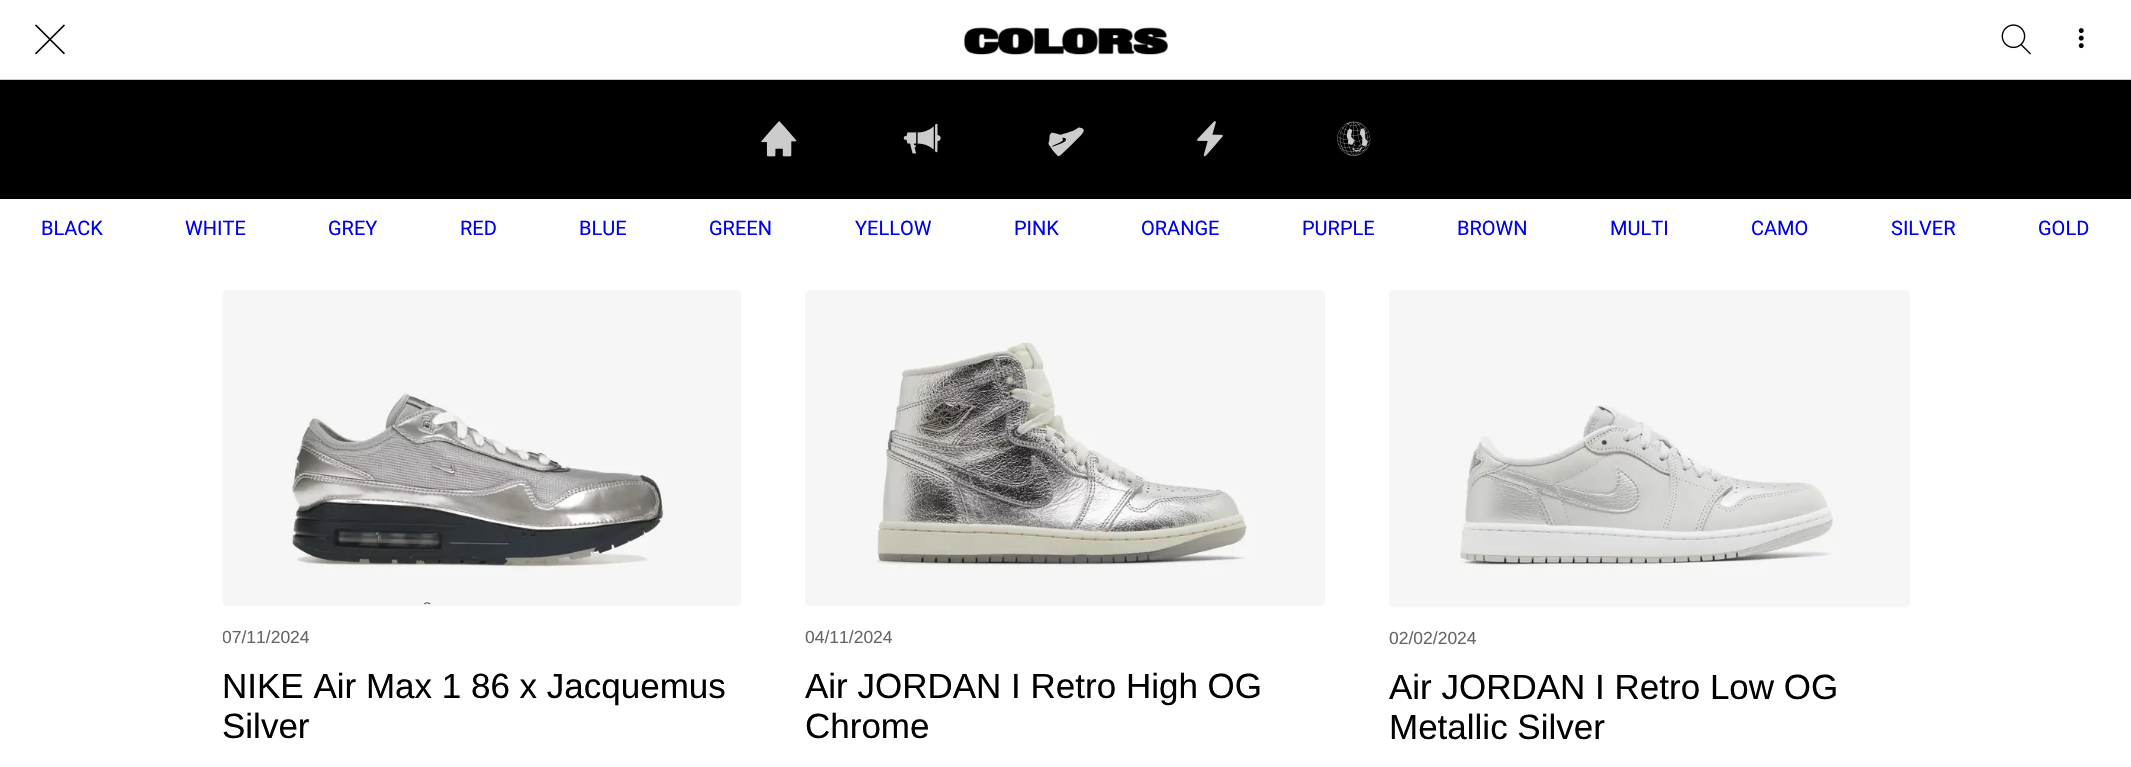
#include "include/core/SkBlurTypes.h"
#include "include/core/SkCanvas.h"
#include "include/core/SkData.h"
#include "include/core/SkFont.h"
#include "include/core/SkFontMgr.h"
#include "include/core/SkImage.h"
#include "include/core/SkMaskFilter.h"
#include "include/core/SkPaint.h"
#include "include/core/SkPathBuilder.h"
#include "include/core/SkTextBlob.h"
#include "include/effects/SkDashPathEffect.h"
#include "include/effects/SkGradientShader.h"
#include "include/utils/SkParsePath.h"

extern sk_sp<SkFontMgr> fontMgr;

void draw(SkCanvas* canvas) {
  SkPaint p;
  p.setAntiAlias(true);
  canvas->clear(SK_ColorWHITE);
  p.setColor(SkColorSetRGB(204, 204, 204));
  canvas->drawRect(SkRect::MakeLTRB(0, 79, 2131, 80), p);
  canvas->drawImageRect(SkImages::DeferredFromEncodedData(SkData::MakeFromFileName("images/1.png")), SkRect::MakeLTRB(35, 24, 65, 55), SkSamplingOptions());
  canvas->drawImageRect(SkImages::DeferredFromEncodedData(SkData::MakeFromFileName("images/2.png")), SkRect::MakeLTRB(963, 27, 1168, 55), SkSamplingOptions());
  canvas->drawImageRect(SkImages::DeferredFromEncodedData(SkData::MakeFromFileName("images/3.png")), SkRect::MakeLTRB(2001, 24, 2031, 55), SkSamplingOptions());
  canvas->drawImageRect(SkImages::DeferredFromEncodedData(SkData::MakeFromFileName("images/4.png")), SkRect::MakeLTRB(2078, 28, 2084, 49), SkSamplingOptions());
  p.setColor(SK_ColorBLACK);
  canvas->drawRect(SkRect::MakeLTRB(0, 80, 2131, 199), p);
  canvas->drawImageRect(SkImages::DeferredFromEncodedData(SkData::MakeFromFileName("images/5.png")), SkRect::MakeLTRB(761, 121, 797, 157), SkSamplingOptions());
  canvas->drawImageRect(SkImages::DeferredFromEncodedData(SkData::MakeFromFileName("images/6.png")), SkRect::MakeLTRB(903, 123, 941, 154), SkSamplingOptions());
  canvas->drawImageRect(SkImages::DeferredFromEncodedData(SkData::MakeFromFileName("images/7.png")), SkRect::MakeLTRB(1048, 127, 1084, 157), SkSamplingOptions());
  canvas->drawImageRect(SkImages::DeferredFromEncodedData(SkData::MakeFromFileName("images/8.png")), SkRect::MakeLTRB(1197, 121, 1223, 157), SkSamplingOptions());
  canvas->drawImageRect(SkImages::DeferredFromEncodedData(SkData::MakeFromFileName("images/9.png")), SkRect::MakeLTRB(1337, 121, 1371, 156), SkSamplingOptions());
  canvas->drawImageRect(SkImages::DeferredFromEncodedData(SkData::MakeFromFileName("images/10.png")), SkRect::MakeLTRB(222, 290, 741, 606), SkSamplingOptions());
  canvas->drawImageRect(SkImages::DeferredFromEncodedData(SkData::MakeFromFileName("images/11.png")), SkRect::MakeLTRB(805, 290, 1325, 606), SkSamplingOptions());
  canvas->drawImageRect(SkImages::DeferredFromEncodedData(SkData::MakeFromFileName("images/12.png")), SkRect::MakeLTRB(1389, 290, 1910, 608), SkSamplingOptions());
  SkFont font1(fontMgr->matchFamilyStyle("Roboto", SkFontStyle::Normal()), 20);
  font1.setSubpixel(true);
  p.setColor(SkColorSetRGB(0, 0, 238));
  canvas->drawString("BLACK", 41, 235, font1, p);
  canvas->drawString("WHITE", 185, 235, font1, p);
  canvas->drawString("GREY", 328, 235, font1, p);
  canvas->drawString("RED", 460, 235, font1, p);
  canvas->drawString("BLUE", 579, 235, font1, p);
  canvas->drawString("GREEN", 709, 235, font1, p);
  canvas->drawString("YELLOW", 855, 235, font1, p);
  canvas->drawString("PINK", 1014, 235, font1, p);
  canvas->drawString("ORANGE", 1141, 235, font1, p);
  canvas->drawString("PURPLE", 1302, 235, font1, p);
  canvas->drawString("BROWN", 1457, 235, font1, p);
  canvas->drawString("MULTI", 1610, 235, font1, p);
  canvas->drawString("CAMO", 1751, 235, font1, p);
  canvas->drawString("SILVER", 1891, 235, font1, p);
  canvas->drawString("GOLD", 2038, 235, font1, p);
  canvas->save();
  canvas->clipRect(SkRect::MakeLTRB(223, 626, 741, 646));
  SkFont font2(fontMgr->matchFamilyStyle("Liberation Sans", SkFontStyle::Normal()), 17.5f);
  font2.setSubpixel(true);
  p.setColor(SkColorSetRGB(102, 102, 102));
  canvas->drawString("07/11/2024", 222, 643, font2, p);
  canvas->restore();
  SkFont font3(fontMgr->matchFamilyStyle("Liberation Sans", SkFontStyle::Normal()), 35);
  font3.setSubpixel(true);
  p.setColor(SK_ColorBLACK);
  canvas->drawString("NIKE Air Max 1 86 x Jacquemus", 222, 698, font3, p);
  canvas->drawString("Silver", 222, 738, font3, p);
  p.setColor(SkColorSetRGB(102, 102, 102));
  canvas->drawString("04/11/2024", 805, 643, font2, p);
  p.setColor(SK_ColorBLACK);
  canvas->drawString("Air JORDAN I Retro High OG", 805, 698, font3, p);
  canvas->drawString("Chrome", 805, 738, font3, p);
  p.setColor(SkColorSetRGB(102, 102, 102));
  canvas->drawString("02/02/2024", 1389, 644, font2, p);
  p.setColor(SK_ColorBLACK);
  canvas->drawString("Air JORDAN I Retro Low OG", 1389, 699, font3, p);
  canvas->drawString("Metallic Silver", 1389, 739, font3, p);
}
